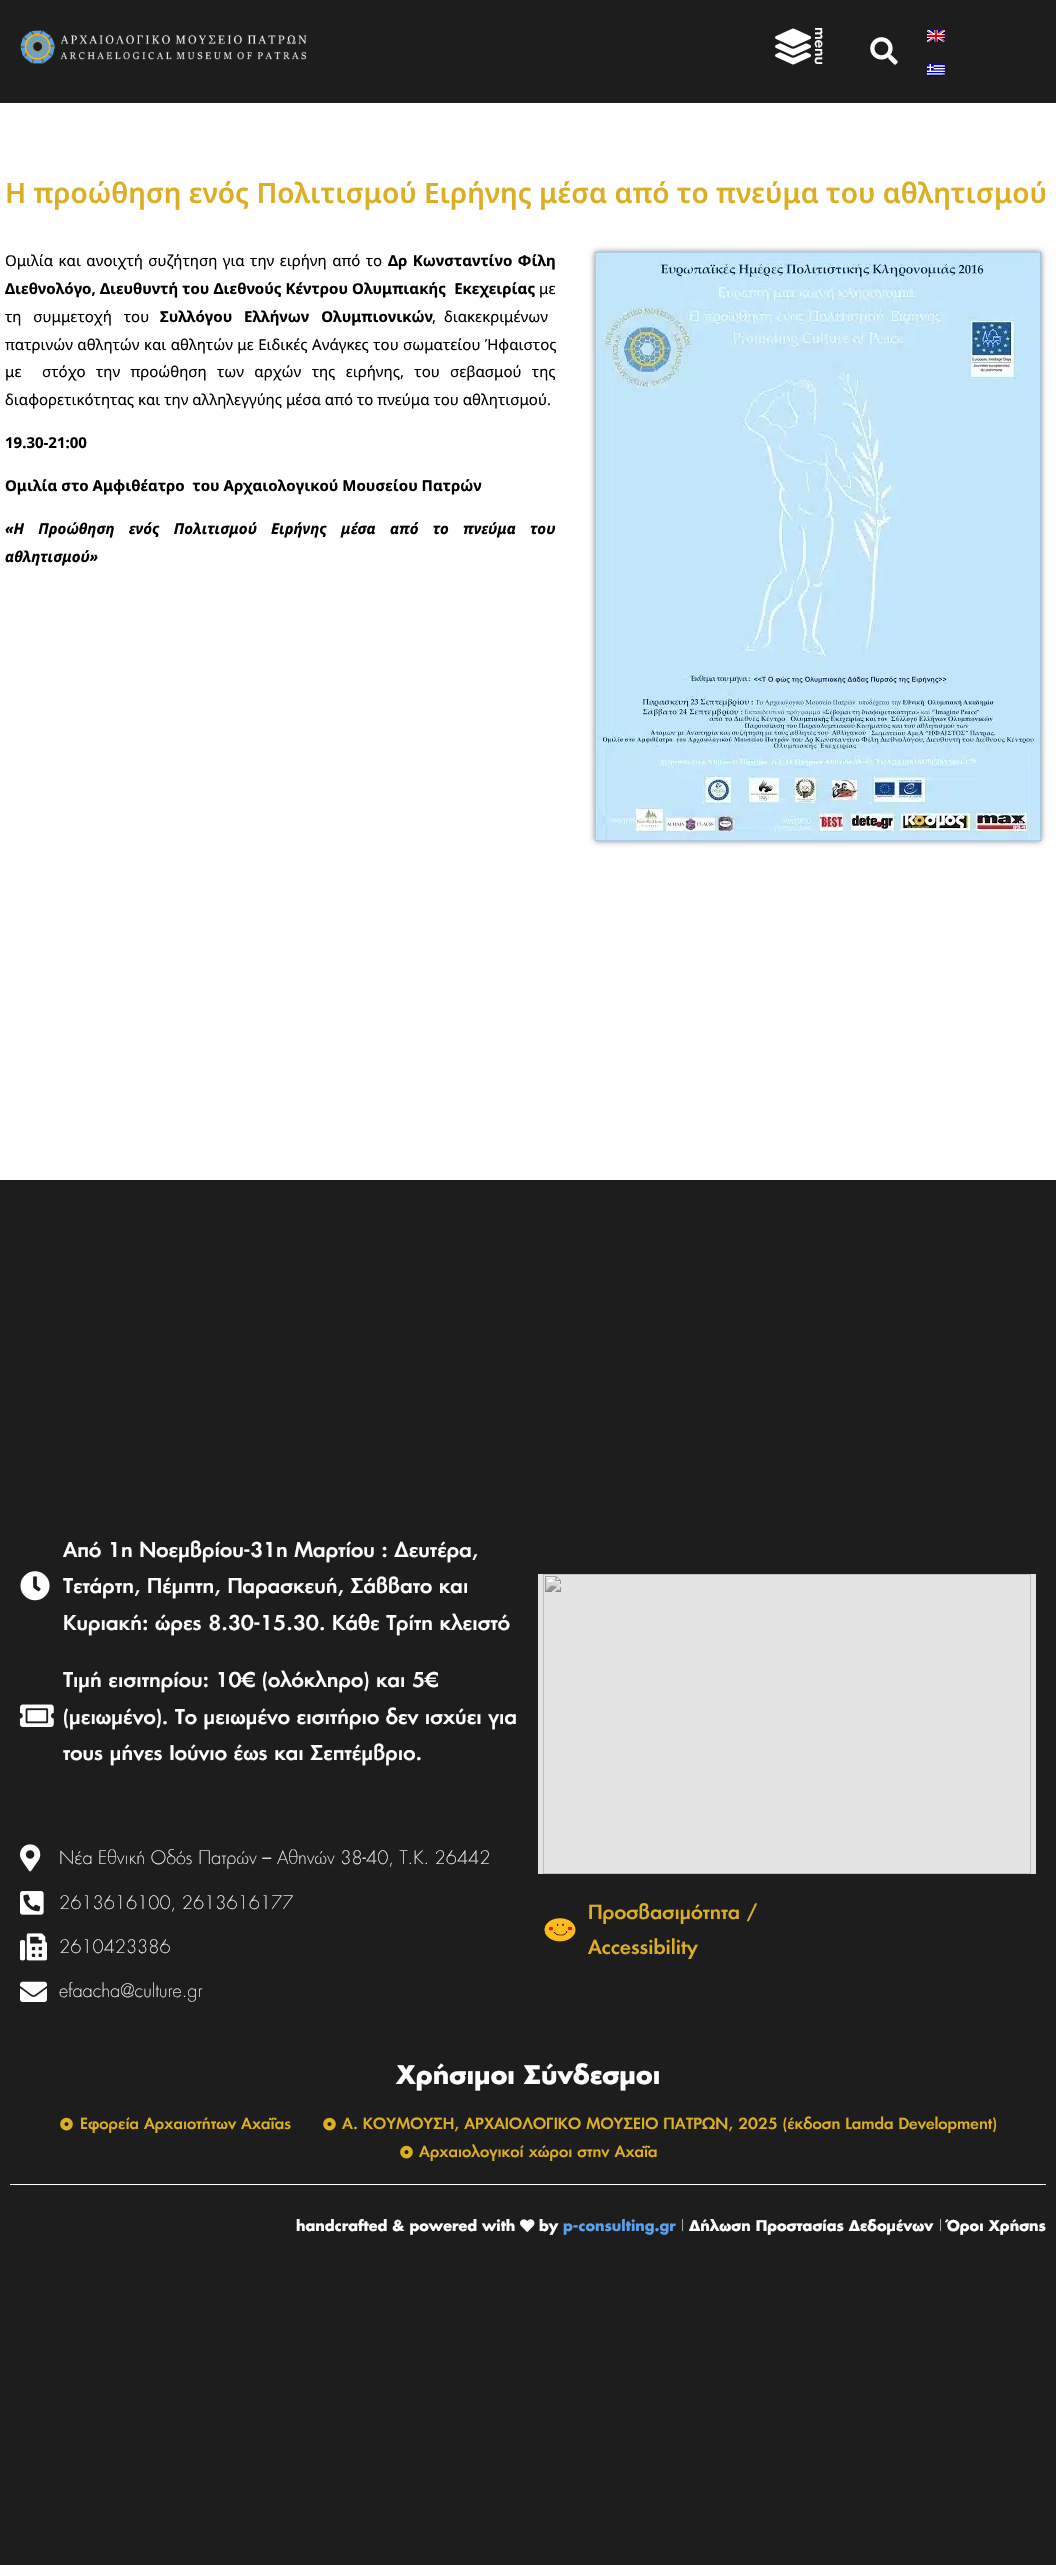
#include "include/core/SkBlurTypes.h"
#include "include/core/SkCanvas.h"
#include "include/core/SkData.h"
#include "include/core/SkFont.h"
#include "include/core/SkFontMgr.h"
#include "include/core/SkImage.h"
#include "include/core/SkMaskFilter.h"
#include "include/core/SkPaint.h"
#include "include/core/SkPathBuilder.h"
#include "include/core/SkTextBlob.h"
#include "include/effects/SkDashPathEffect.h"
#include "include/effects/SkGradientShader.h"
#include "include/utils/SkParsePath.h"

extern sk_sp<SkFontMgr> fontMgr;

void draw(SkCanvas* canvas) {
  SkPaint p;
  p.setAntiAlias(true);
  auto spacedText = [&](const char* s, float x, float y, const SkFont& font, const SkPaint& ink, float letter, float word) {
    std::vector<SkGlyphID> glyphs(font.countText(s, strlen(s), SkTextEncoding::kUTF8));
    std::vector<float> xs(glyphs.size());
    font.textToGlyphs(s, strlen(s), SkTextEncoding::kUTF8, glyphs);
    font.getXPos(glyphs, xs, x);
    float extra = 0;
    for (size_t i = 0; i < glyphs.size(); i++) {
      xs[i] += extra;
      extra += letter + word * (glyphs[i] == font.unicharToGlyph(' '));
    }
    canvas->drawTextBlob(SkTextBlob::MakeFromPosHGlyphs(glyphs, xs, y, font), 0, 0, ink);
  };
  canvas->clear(SK_ColorWHITE);
  p.setColor(SkColorSetRGB(29, 29, 29));
  canvas->drawRect(SkRect::MakeLTRB(0, 0, 1056, 103), p);
  canvas->drawImageRect(SkImages::DeferredFromEncodedData(SkData::MakeFromFileName("images/1.png")), SkRect::MakeLTRB(20, 30, 307, 64), SkSamplingOptions());
  canvas->drawImageRect(SkImages::DeferredFromEncodedData(SkData::MakeFromFileName("images/2.png")), SkRect::MakeLTRB(775, 28, 811, 65), SkSamplingOptions());
  canvas->drawImageRect(SkImages::DeferredFromEncodedData(SkData::MakeFromFileName("images/3.png")), SkRect::MakeLTRB(870, 37, 898, 65), SkSamplingOptions());
  canvas->drawImageRect(SkImages::DeferredFromEncodedData(SkData::MakeFromFileName("images/4.png")), SkRect::MakeLTRB(927, 30, 945, 42), SkSamplingOptions());
  canvas->drawImageRect(SkImages::DeferredFromEncodedData(SkData::MakeFromFileName("images/5.png")), SkRect::MakeLTRB(927, 64, 945, 76), SkSamplingOptions());
  p.setColor(SkColorSetARGB(128, 0, 0, 0));
  p.setMaskFilter(SkMaskFilter::MakeBlur(kNormal_SkBlurStyle, 3));
  canvas->drawRect(SkRect::MakeLTRB(595, 252, 1041, 841), p);
  p.setMaskFilter(nullptr);
  canvas->drawImageRect(SkImages::DeferredFromEncodedData(SkData::MakeFromFileName("images/6.png")), SkRect::MakeLTRB(595, 252, 1041, 841), SkSamplingOptions());
  p.setColor(SkColorSetRGB(29, 29, 29));
  canvas->drawRect(SkRect::MakeLTRB(0, 1180, 1056, 2565), p);
  canvas->drawImageRect(SkImages::DeferredFromEncodedData(SkData::MakeFromFileName("images/7.png")), SkRect::MakeLTRB(20, 1571, 50, 1601), SkSamplingOptions());
  canvas->drawImageRect(SkImages::DeferredFromEncodedData(SkData::MakeFromFileName("images/8.png")), SkRect::MakeLTRB(20, 1704, 54, 1727), SkSamplingOptions());
  canvas->drawImageRect(SkImages::DeferredFromEncodedData(SkData::MakeFromFileName("images/9.png")), SkRect::MakeLTRB(20, 1844, 41, 1872), SkSamplingOptions());
  canvas->drawImageRect(SkImages::DeferredFromEncodedData(SkData::MakeFromFileName("images/10.png")), SkRect::MakeLTRB(20, 1891, 44, 1915), SkSamplingOptions());
  canvas->drawImageRect(SkImages::DeferredFromEncodedData(SkData::MakeFromFileName("images/11.png")), SkRect::MakeLTRB(20, 1933, 47, 1961), SkSamplingOptions());
  canvas->drawImageRect(SkImages::DeferredFromEncodedData(SkData::MakeFromFileName("images/12.png")), SkRect::MakeLTRB(20, 1981, 47, 2002), SkSamplingOptions());
  canvas->drawImageRect(SkImages::DeferredFromEncodedData(SkData::MakeFromFileName("images/13.png")), SkRect::MakeLTRB(538, 1574, 1036, 1874), SkSamplingOptions());
  canvas->drawImageRect(SkImages::DeferredFromEncodedData(SkData::MakeFromFileName("images/14.png")), SkRect::MakeLTRB(544, 1918, 576, 1942), SkSamplingOptions());
  canvas->drawImageRect(SkImages::DeferredFromEncodedData(SkData::MakeFromFileName("images/15.png")), SkRect::MakeLTRB(60, 2117, 73, 2131), SkSamplingOptions());
  canvas->drawImageRect(SkImages::DeferredFromEncodedData(SkData::MakeFromFileName("images/15.png")), SkRect::MakeLTRB(323, 2117, 336, 2131), SkSamplingOptions());
  canvas->drawImageRect(SkImages::DeferredFromEncodedData(SkData::MakeFromFileName("images/15.png")), SkRect::MakeLTRB(400, 2145, 413, 2159), SkSamplingOptions());
  p.setColor(SK_ColorWHITE);
  canvas->drawRect(SkRect::MakeLTRB(10, 2184, 1046, 2185), p);
  canvas->drawImageRect(SkImages::DeferredFromEncodedData(SkData::MakeFromFileName("images/16.png")), SkRect::MakeLTRB(520, 2219, 535, 2232), SkSamplingOptions());
  SkFont font1(fontMgr->matchFamilyStyle("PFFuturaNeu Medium", SkFontStyle(500, SkFontStyle::kNormal_Width, SkFontStyle::kUpright_Slant)), 14.4f);
  font1.setSubpixel(true);
  canvas->save();
  canvas->rotate(90, 815, 27);
  canvas->drawString("menu", 815, 27, font1, p);
  canvas->restore();
  SkFont font2(fontMgr->matchFamilyStyle("Noto Sans", SkFontStyle(600, SkFontStyle::kNormal_Width, SkFontStyle::kUpright_Slant)), 28);
  font2.setSubpixel(true);
  p.setColor(SkColorSetRGB(220, 174, 36));
  canvas->drawString("Η προώθηση ενός Πολιτισμού Ειρήνης μέσα από το πνεύμα του αθλητισμού", 5, 203, font2, p);
  SkFont font3(fontMgr->matchFamilyStyle("Noto Sans", SkFontStyle::Normal()), 15);
  font3.setSubpixel(true);
  p.setColor(SK_ColorBLACK);
  spacedText("Ομιλία και ανοιχτή συζήτηση για την ειρήνη από το", 5, 266, font3, p, 0, 1.5f);
  SkFont font4(fontMgr->matchFamilyStyle("Noto Sans", SkFontStyle::Bold()), 15);
  font4.setSubpixel(true);
  spacedText("Δρ Κωνσταντίνο Φίλη", 388, 266, font4, p, 0, 1.5f);
  spacedText("Διεθνολόγο, Διευθυντή του Διεθνούς Κέντρου Ολυμπιακής  Εκεχειρίας", 5, 294, font4, p, 0, 0.25f);
  canvas->drawString("με", 539, 294, font3, p);
  spacedText("τη συμμετοχή του", 5, 322, font3, p, 0, 8);
  spacedText("Συλλόγου Ελλήνων Ολυμπιονικών", 160, 322, font4, p, 0, 8);
  spacedText(", διακεκριμένων", 432, 322, font3, p, 0, 4);
  spacedText("πατρινών αθλητών και αθλητών με Ειδικές Ανάγκες του σωματείου Ήφαιστος", 5, 350, font3, p, 0, 0.5f);
  spacedText("με  στόχο την προώθηση των αρχών της ειρήνης, του σεβασμού της", 5, 377, font3, p, 0, 6.4f);
  canvas->drawString("διαφορετικότητας και την αλληλεγγύης μέσα από το πνεύμα του αθλητισμού.", 5, 405, font3, p);
  canvas->drawString("19.30-21:00", 5, 448, font4, p);
  canvas->drawString("Ομιλία στο Αμφιθέατρο  του Αρχαιολογικού Μουσείου Πατρών", 5, 491, font4, p);
  SkFont font5(fontMgr->matchFamilyStyle("Noto Sans", SkFontStyle::BoldItalic()), 15);
  font5.setSubpixel(true);
  spacedText("«Η Προώθηση ενός Πολιτισμού Ειρήνης μέσα από το πνεύμα του", 5, 534, font5, p, 0, 10.25f);
  canvas->drawString("αθλητισμού»", 5, 562, font5, p);
  SkFont font6(fontMgr->matchFamilyStyle("PFFuturaNeu Medium", SkFontStyle(500, SkFontStyle::kNormal_Width, SkFontStyle::kUpright_Slant)), 19.8f);
  font6.setSubpixel(true);
  p.setColor(SK_ColorWHITE);
  canvas->drawString("Από 1η Νοεμβρίου-31η Μαρτίου : Δευτέρα,", 63, 1557, font6, p);
  canvas->drawString("Τετάρτη, Πέμπτη, Παρασκευή, Σάββατο και", 63, 1593, font6, p);
  canvas->drawString("Κυριακή: ώρες 8.30-15.30. Κάθε Τρίτη κλειστό", 63, 1630, font6, p);
  canvas->drawString("Τιμή εισιτηρίου: 10€ (ολόκληρο) και 5€", 63, 1687, font6, p);
  canvas->drawString("(μειωμένο). Το μειωμένο εισιτήριο δεν ισχύει για", 63, 1724, font6, p);
  canvas->drawString("τους μήνες Ιούνιο έως και Σεπτέμβριο.", 63, 1760, font6, p);
  SkFont font7(fontMgr->matchFamilyStyle("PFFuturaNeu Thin", SkFontStyle(100, SkFontStyle::kNormal_Width, SkFontStyle::kUpright_Slant)), 18);
  font7.setSubpixel(true);
  canvas->drawString("Νέα Εθνική Οδός Πατρών – Αθηνών 38-40, Τ.Κ. 26442", 59, 1864, font7, p);
  canvas->drawString("2613616100, 2613616177", 59, 1909, font7, p);
  canvas->drawString("2610423386", 59, 1953, font7, p);
  canvas->drawString("efaacha@culture.gr", 59, 1997, font7, p);
  SkFont font8(fontMgr->matchFamilyStyle("PFFuturaNeu Medium", SkFontStyle(500, SkFontStyle::kNormal_Width, SkFontStyle::kUpright_Slant)), 19);
  font8.setSubpixel(true);
  p.setColor(SkColorSetRGB(220, 174, 36));
  canvas->drawString("Προσβασιμότητα /", 588, 1919, font8, p);
  canvas->drawString("Accessibility", 588, 1954, font8, p);
  SkFont font9(fontMgr->matchFamilyStyle("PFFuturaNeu", SkFontStyle::Bold()), 25);
  font9.setSubpixel(true);
  p.setColor(SK_ColorWHITE);
  canvas->drawString("Χρήσιμοι Σύνδεσμοι", 396, 2084, font9, p);
  SkFont font10(fontMgr->matchFamilyStyle("PFFuturaNeu Medium", SkFontStyle(500, SkFontStyle::kNormal_Width, SkFontStyle::kUpright_Slant)), 15);
  font10.setSubpixel(true);
  p.setColor(SkColorSetRGB(220, 174, 36));
  canvas->drawString("Εφορεία Αρχαιοτήτων Αχαΐας", 80, 2129, font10, p);
  canvas->drawString("Α. ΚΟΥΜΟΥΣΗ, ΑΡΧΑΙΟΛΟΓΙΚΟ ΜΟΥΣΕΙΟ ΠΑΤΡΩΝ, 2025 (έκδοση Lamda Development)", 342, 2129, font10, p);
  canvas->drawString("Αρχαιολογικοί χώροι στην Αχαΐα", 419, 2157, font10, p);
  SkFont font11(fontMgr->matchFamilyStyle("PFFuturaNeu", SkFontStyle::Bold()), 14.4f);
  font11.setSubpixel(true);
  p.setColor(SK_ColorWHITE);
  canvas->drawString("handcrafted & powered with", 296, 2231, font11, p);
  canvas->drawString("by", 539, 2231, font11, p);
  p.setColor(SkColorSetRGB(90, 161, 237));
  canvas->drawString("p-consulting.gr", 563, 2231, font11, p);
  SkFont font12(fontMgr->matchFamilyStyle("PFFuturaNeu Thin", SkFontStyle(100, SkFontStyle::kNormal_Width, SkFontStyle::kUpright_Slant)), 14.4f);
  font12.setSubpixel(true);
  p.setColor(SK_ColorWHITE);
  canvas->drawString("|", 680, 2231, font12, p);
  canvas->drawString("Δήλωση Προστασίας Δεδομένων", 689, 2231, font11, p);
  canvas->drawString("|", 938, 2231, font12, p);
  canvas->drawString("Όροι Χρήσης", 947, 2231, font11, p);
}
